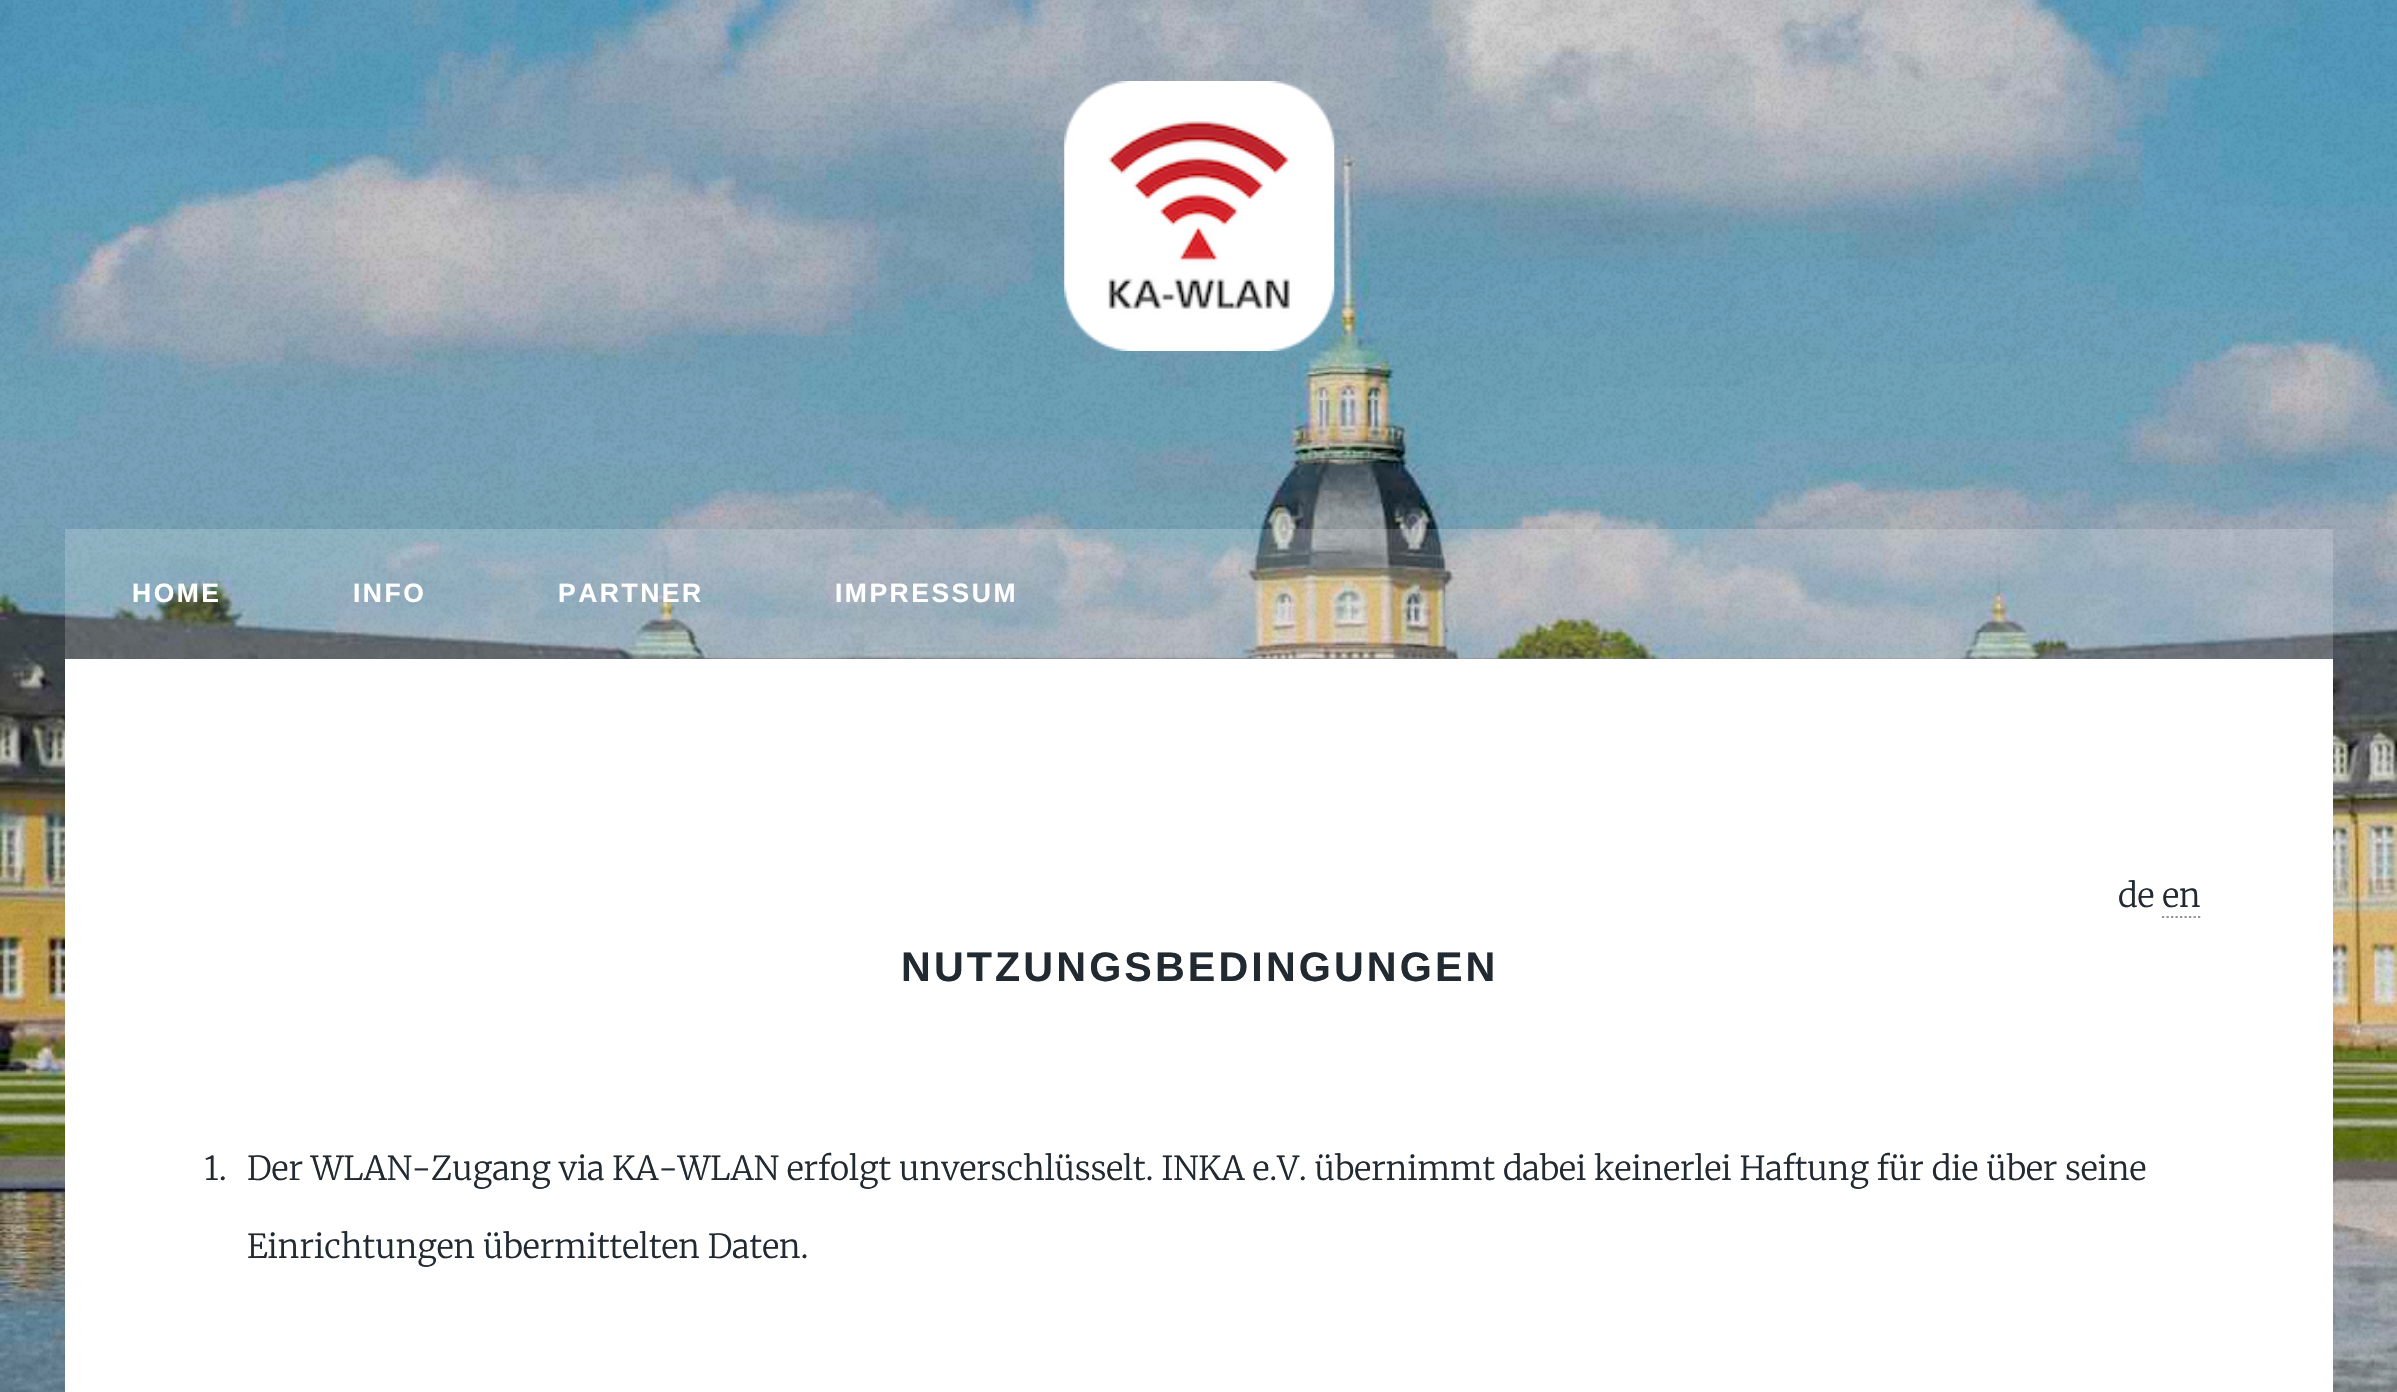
#include "include/core/SkBlurTypes.h"
#include "include/core/SkCanvas.h"
#include "include/core/SkData.h"
#include "include/core/SkFont.h"
#include "include/core/SkFontMgr.h"
#include "include/core/SkImage.h"
#include "include/core/SkMaskFilter.h"
#include "include/core/SkPaint.h"
#include "include/core/SkPathBuilder.h"
#include "include/core/SkTextBlob.h"
#include "include/effects/SkDashPathEffect.h"
#include "include/effects/SkGradientShader.h"
#include "include/utils/SkParsePath.h"

extern sk_sp<SkFontMgr> fontMgr;

void draw(SkCanvas* canvas) {
  SkPaint p;
  p.setAntiAlias(true);
  auto spacedText = [&](const char* s, float x, float y, const SkFont& font, const SkPaint& ink, float letter, float word) {
    std::vector<SkGlyphID> glyphs(font.countText(s, strlen(s), SkTextEncoding::kUTF8));
    std::vector<float> xs(glyphs.size());
    font.textToGlyphs(s, strlen(s), SkTextEncoding::kUTF8, glyphs);
    font.getXPos(glyphs, xs, x);
    float extra = 0;
    for (size_t i = 0; i < glyphs.size(); i++) {
      xs[i] += extra;
      extra += letter + word * (glyphs[i] == font.unicharToGlyph(' '));
    }
    canvas->drawTextBlob(SkTextBlob::MakeFromPosHGlyphs(glyphs, xs, y, font), 0, 0, ink);
  };
  canvas->clear(SK_ColorWHITE);
  canvas->drawImageRect(SkImages::DeferredFromEncodedData(SkData::MakeFromFileName("images/1.png")), SkRect::MakeLTRB(0, 0, 2397, 1392), SkSamplingOptions());
  canvas->drawImageRect(SkImages::DeferredFromEncodedData(SkData::MakeFromFileName("images/2.png")), SkRect::MakeLTRB(1064, 81, 1335, 351), SkSamplingOptions());
  p.setColor(SkColorSetARGB(46, 255, 255, 255));
  canvas->drawRect(SkRect::MakeLTRB(65, 529, 2333, 659), p);
  p.setColor(SK_ColorWHITE);
  canvas->drawRect(SkRect::MakeLTRB(65, 659, 2333, 1392), p);
  p.setStyle(SkPaint::kStroke_Style);
  p.setStrokeWidth(2.2f);
  p.setColor(SkColorSetRGB(144, 148, 152));
  p.setPathEffect(SkDashPathEffect::Make({{2.25f, 2.25f}}, 0));
  canvas->drawPath(SkPathBuilder().moveTo(2162, 917).lineTo(2200.5f, 917).detach(), p);
  p.setPathEffect(nullptr);
  SkFont font1(fontMgr->matchFamilyStyle("Liberation Sans", SkFontStyle::Bold()), 26.5f);
  font1.setSubpixel(true);
  p.setStyle(SkPaint::kFill_Style);
  p.setColor(SK_ColorWHITE);
  spacedText("HOME", 132, 602, font1, p, 2.5f, 0);
  spacedText("INFO", 353, 602, font1, p, 2.5f, 0);
  spacedText("PARTNER", 558, 602, font1, p, 2.5f, 0);
  spacedText("IMPRESSUM", 835, 602, font1, p, 2.5f, 0);
  SkFont font2(fontMgr->matchFamilyStyle("Merriweather", SkFontStyle(300, SkFontStyle::kNormal_Width, SkFontStyle::kUpright_Slant)), 33);
  font2.setSubpixel(true);
  p.setColor(SkColorSetRGB(33, 41, 49));
  canvas->drawString("de en", 2118, 907, font2, p);
  SkFont font3(fontMgr->matchFamilyStyle("Liberation Sans", SkFontStyle::Bold()), 41.25f);
  font3.setSubpixel(true);
  spacedText("NUTZUNGSBEDINGUNGEN", 901, 981, font3, p, 3.1f, 0);
  canvas->drawString("1.", 204, 1180, font2, p);
  canvas->drawString("Der WLAN-Zugang via KA-WLAN erfolgt unverschlüsselt. INKA e.V. übernimmt dabei keinerlei Haftung für die über seine", 247, 1180, font2, p);
  canvas->drawString("Einrichtungen übermittelten Daten.", 247, 1258, font2, p);
}
